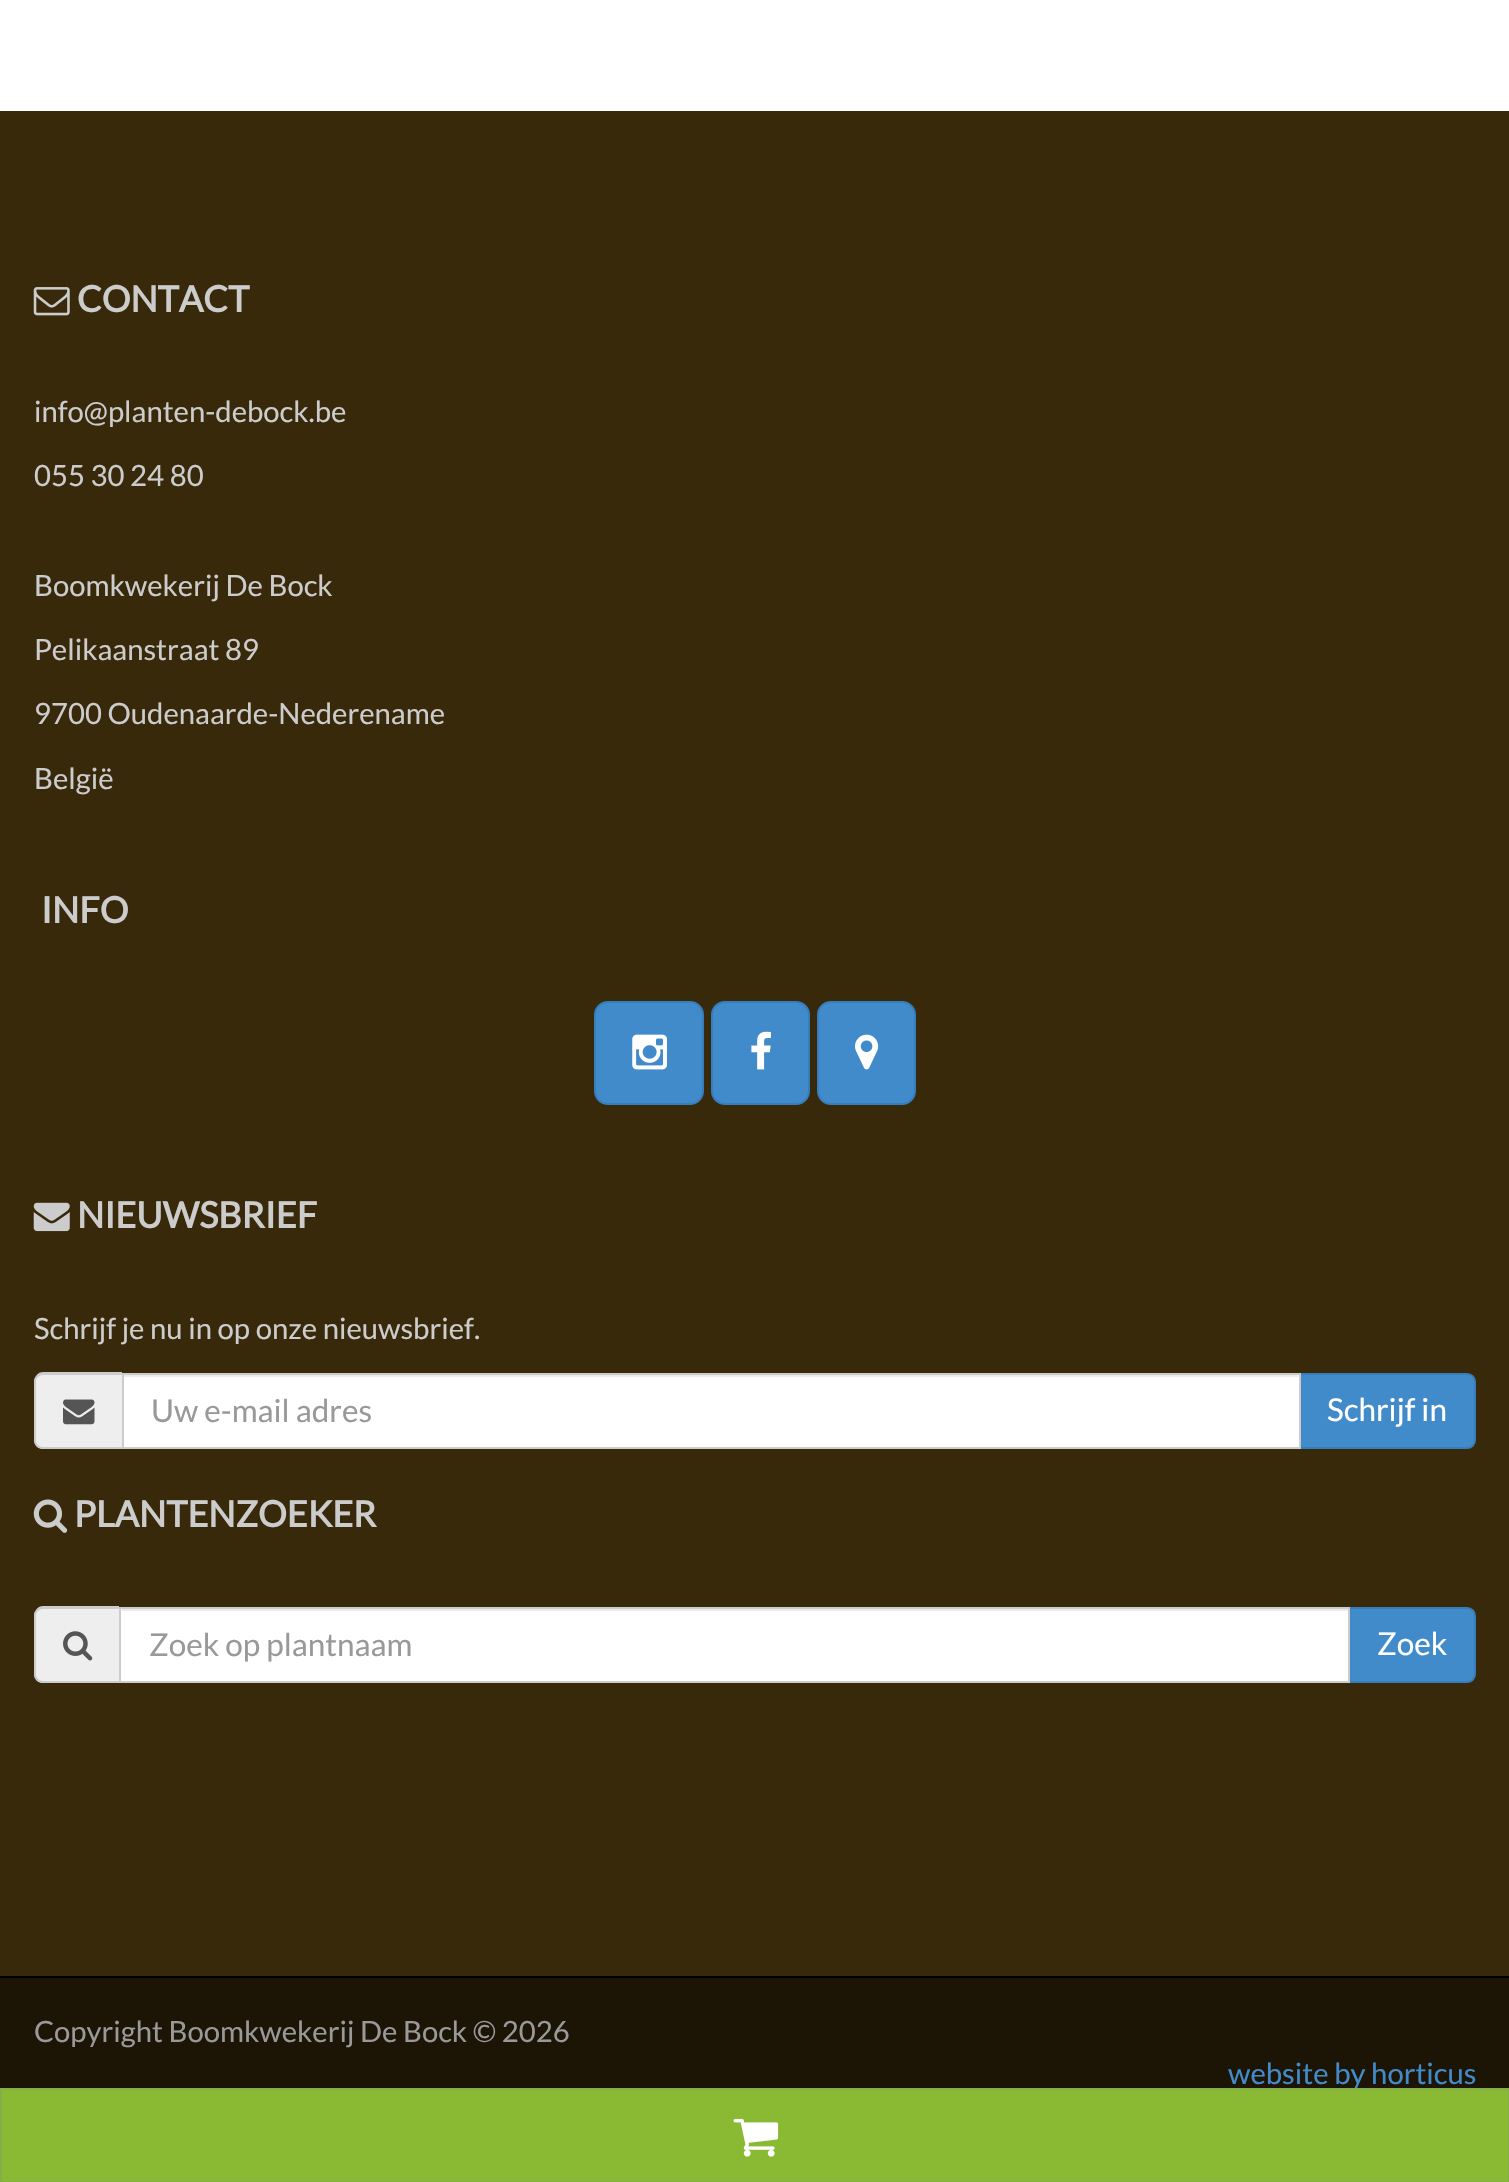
#include "include/core/SkBlurTypes.h"
#include "include/core/SkCanvas.h"
#include "include/core/SkData.h"
#include "include/core/SkFont.h"
#include "include/core/SkFontMgr.h"
#include "include/core/SkImage.h"
#include "include/core/SkMaskFilter.h"
#include "include/core/SkPaint.h"
#include "include/core/SkPathBuilder.h"
#include "include/core/SkTextBlob.h"
#include "include/effects/SkDashPathEffect.h"
#include "include/effects/SkGradientShader.h"
#include "include/utils/SkParsePath.h"

extern sk_sp<SkFontMgr> fontMgr;

void draw(SkCanvas* canvas) {
  SkPaint p;
  p.setAntiAlias(true);
  canvas->clear(SK_ColorWHITE);
  p.setColor(SkColorSetRGB(56, 41, 11));
  canvas->drawRect(SkRect::MakeLTRB(0, 111, 1509, 1976), p);
  canvas->drawImageRect(SkImages::DeferredFromEncodedData(SkData::MakeFromFileName("images/1.png")), SkRect::MakeLTRB(33, 287, 70, 316), SkSamplingOptions());
  p.setColor(SkColorSetRGB(66, 139, 202));
  canvas->drawRoundRect(SkRect::MakeLTRB(595, 1002, 703, 1104), 13, 13, p);
  p.setStyle(SkPaint::kStroke_Style);
  p.setStrokeWidth(2);
  p.setColor(SkColorSetRGB(53, 126, 189));
  canvas->drawRoundRect(SkRect::MakeLTRB(595, 1002, 703, 1104), 13, 13, p);
  canvas->drawImageRect(SkImages::DeferredFromEncodedData(SkData::MakeFromFileName("images/2.png")), SkRect::MakeLTRB(632, 1034, 667, 1070), SkSamplingOptions());
  p.setStyle(SkPaint::kFill_Style);
  p.setColor(SkColorSetRGB(66, 139, 202));
  canvas->drawRoundRect(SkRect::MakeLTRB(712, 1002, 809, 1104), 13, 13, p);
  p.setStyle(SkPaint::kStroke_Style);
  p.setColor(SkColorSetRGB(53, 126, 189));
  canvas->drawRoundRect(SkRect::MakeLTRB(712, 1002, 809, 1104), 13, 13, p);
  canvas->drawImageRect(SkImages::DeferredFromEncodedData(SkData::MakeFromFileName("images/3.png")), SkRect::MakeLTRB(751, 1031, 771, 1070), SkSamplingOptions());
  p.setStyle(SkPaint::kFill_Style);
  p.setColor(SkColorSetRGB(66, 139, 202));
  canvas->drawRoundRect(SkRect::MakeLTRB(818, 1002, 915, 1104), 13, 13, p);
  p.setStyle(SkPaint::kStroke_Style);
  p.setColor(SkColorSetRGB(53, 126, 189));
  canvas->drawRoundRect(SkRect::MakeLTRB(818, 1002, 915, 1104), 13, 13, p);
  canvas->drawImageRect(SkImages::DeferredFromEncodedData(SkData::MakeFromFileName("images/4.png")), SkRect::MakeLTRB(855, 1034, 879, 1070), SkSamplingOptions());
  canvas->drawImageRect(SkImages::DeferredFromEncodedData(SkData::MakeFromFileName("images/5.png")), SkRect::MakeLTRB(33, 1202, 70, 1232), SkSamplingOptions());
  p.setStyle(SkPaint::kFill_Style);
  p.setColor(SkColorSetRGB(238, 238, 238));
  canvas->drawPath(SkPathBuilder().moveTo(43, 1373).lineTo(122, 1373).lineTo(122, 1449).lineTo(43, 1449).cubicTo(38, 1449, 34, 1445, 34, 1440).lineTo(34, 1382).cubicTo(34, 1377, 38, 1373, 43, 1373).close().detach(), p);
  p.setColor(SkColorSetRGB(204, 204, 204));
  canvas->drawPath(SkPathBuilder(SkPathFillType::kEvenOdd).moveTo(43, 1372).lineTo(122, 1372).lineTo(122, 1449).lineTo(43, 1449).cubicTo(38, 1449, 34, 1445, 34, 1440).lineTo(34, 1382).cubicTo(34, 1377, 38, 1372, 43, 1372).close().moveTo(43, 1375).lineTo(122, 1375).lineTo(122, 1447).lineTo(43, 1447).cubicTo(39, 1447, 36, 1444, 36, 1440).lineTo(36, 1382).cubicTo(36, 1378, 39, 1375, 43, 1375).close().detach(), p);
  canvas->drawImageRect(SkImages::DeferredFromEncodedData(SkData::MakeFromFileName("images/6.png")), SkRect::MakeLTRB(63, 1399, 95, 1425), SkSamplingOptions());
  p.setColor(SkColorSetRGB(66, 139, 202));
  canvas->drawPath(SkPathBuilder().moveTo(1299, 1374).lineTo(1467, 1374).cubicTo(1471.5f, 1374, 1475, 1377.5f, 1475, 1382).lineTo(1475, 1440).cubicTo(1475, 1444.5f, 1471.5f, 1448, 1467, 1448).lineTo(1299, 1448).close().detach(), p);
  p.setStyle(SkPaint::kStroke_Style);
  p.setColor(SkColorSetRGB(53, 126, 189));
  canvas->drawPath(SkPathBuilder().moveTo(1299, 1374).lineTo(1467, 1374).cubicTo(1471.5f, 1374, 1475, 1377.5f, 1475, 1382).lineTo(1475, 1440).cubicTo(1475, 1444.5f, 1471.5f, 1448, 1467, 1448).lineTo(1299, 1448).close().detach(), p);
  p.setStyle(SkPaint::kFill_Style);
  p.setColor(SK_ColorWHITE);
  canvas->drawRect(SkRect::MakeLTRB(124, 1375, 1299, 1447), p);
  p.setColor(SkColorSetRGB(236, 236, 236));
  canvas->drawRect(SkRect::MakeLTRB(124, 1375, 1298, 1377), p);
  p.setStyle(SkPaint::kStroke_Style);
  p.setColor(SkColorSetRGB(204, 204, 204));
  canvas->drawRect(SkRect::MakeLTRB(123, 1374, 1300, 1448), p);
  canvas->drawImageRect(SkImages::DeferredFromEncodedData(SkData::MakeFromFileName("images/7.png")), SkRect::MakeLTRB(33, 1499, 68, 1533), SkSamplingOptions());
  p.setStyle(SkPaint::kFill_Style);
  p.setColor(SkColorSetRGB(238, 238, 238));
  canvas->drawPath(SkPathBuilder().moveTo(43, 1607).lineTo(119, 1607).lineTo(119, 1683).lineTo(43, 1683).cubicTo(38, 1683, 34, 1679, 34, 1674).lineTo(34, 1616).cubicTo(34, 1611, 38, 1607, 43, 1607).close().detach(), p);
  p.setColor(SkColorSetRGB(204, 204, 204));
  canvas->drawPath(SkPathBuilder(SkPathFillType::kEvenOdd).moveTo(43, 1606).lineTo(119, 1606).lineTo(119, 1683).lineTo(43, 1683).cubicTo(38, 1683, 34, 1679, 34, 1674).lineTo(34, 1616).cubicTo(34, 1611, 38, 1606, 43, 1606).close().moveTo(43, 1609).lineTo(119, 1609).lineTo(119, 1681).lineTo(43, 1681).cubicTo(39, 1681, 36, 1678, 36, 1674).lineTo(36, 1616).cubicTo(36, 1612, 39, 1609, 43, 1609).close().detach(), p);
  canvas->drawImageRect(SkImages::DeferredFromEncodedData(SkData::MakeFromFileName("images/8.png")), SkRect::MakeLTRB(63, 1631, 93, 1661), SkSamplingOptions());
  p.setColor(SK_ColorWHITE);
  canvas->drawRect(SkRect::MakeLTRB(121, 1609, 1348, 1681), p);
  p.setColor(SkColorSetRGB(236, 236, 236));
  canvas->drawRect(SkRect::MakeLTRB(122, 1609, 1348, 1611), p);
  p.setColor(SkColorSetRGB(66, 139, 202));
  canvas->drawPath(SkPathBuilder().moveTo(1349, 1608).lineTo(1467, 1608).cubicTo(1471.5f, 1608, 1475, 1611.5f, 1475, 1616).lineTo(1475, 1674).cubicTo(1475, 1678.5f, 1471.5f, 1682, 1467, 1682).lineTo(1349, 1682).close().detach(), p);
  p.setStyle(SkPaint::kStroke_Style);
  p.setColor(SkColorSetRGB(53, 126, 189));
  canvas->drawPath(SkPathBuilder().moveTo(1349, 1608).lineTo(1467, 1608).cubicTo(1471.5f, 1608, 1475, 1611.5f, 1475, 1616).lineTo(1475, 1674).cubicTo(1475, 1678.5f, 1471.5f, 1682, 1467, 1682).lineTo(1349, 1682).close().detach(), p);
  p.setColor(SkColorSetRGB(204, 204, 204));
  canvas->drawRect(SkRect::MakeLTRB(120, 1608, 1349, 1682), p);
  p.setStyle(SkPaint::kFill_Style);
  p.setColor(SkColorSetRGB(28, 21, 6));
  canvas->drawRect(SkRect::MakeLTRB(0, 1978, 1509, 2088), p);
  p.setColor(SK_ColorBLACK);
  canvas->drawRect(SkRect::MakeLTRB(0, 1976, 1509, 1978), p);
  SkFont font1(fontMgr->matchFamilyStyle("Lato", SkFontStyle::Bold()), 36);
  font1.setSubpixel(true);
  p.setColor(SkColorSetRGB(204, 204, 204));
  canvas->drawString("CONTACT", 77, 312, font1, p);
  SkFont font2(fontMgr->matchFamilyStyle("Lato", SkFontStyle::Normal()), 29.25f);
  font2.setSubpixel(true);
  canvas->drawString("info@planten-debock.be", 34, 422, font2, p);
  canvas->drawString("055 30 24 80", 34, 486, font2, p);
  canvas->drawString("Boomkwekerij De Bock", 34, 596, font2, p);
  canvas->drawString("Pelikaanstraat 89", 34, 660, font2, p);
  canvas->drawString("9700 Oudenaarde-Nederename", 34, 724, font2, p);
  canvas->drawString("België", 34, 789, font2, p);
  canvas->drawString("INFO", 41, 923, font1, p);
  canvas->drawString("NIEUWSBRIEF", 77, 1228, font1, p);
  canvas->drawString("Schrijf je nu in op onze nieuwsbrief.", 34, 1339, font2, p);
  SkFont font3(fontMgr->matchFamilyStyle("Lato", SkFontStyle::Normal()), 31.5f);
  font3.setSubpixel(true);
  p.setColor(SkColorSetRGB(153, 153, 153));
  canvas->drawString("Uw e-mail adres", 151, 1422, font3, p);
  p.setColor(SK_ColorWHITE);
  canvas->drawString("Schrijf in", 1327, 1421, font3, p);
  p.setColor(SkColorSetRGB(204, 204, 204));
  canvas->drawString("PLANTENZOEKER", 74, 1527, font1, p);
  p.setColor(SkColorSetRGB(153, 153, 153));
  canvas->drawString("Zoek op plantnaam", 149, 1656, font3, p);
  p.setColor(SK_ColorWHITE);
  canvas->drawString("Zoek", 1377, 1655, font3, p);
  p.setColor(SkColorSetRGB(153, 153, 153));
  canvas->drawString("Copyright Boomkwekerij De Bock © 2026", 34, 2042, font2, p);
  p.setColor(SkColorSetRGB(66, 139, 202));
  canvas->drawString("website by horticus", 1228, 2084, font2, p);
  p.setColor(SkColorSetRGB(138, 185, 51));
  canvas->drawRect(SkRect::MakeLTRB(1, 2089, 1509, 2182), p);
  p.setStyle(SkPaint::kStroke_Style);
  p.setColor(SkColorSetRGB(132, 174, 72));
  canvas->drawRect(SkRect::MakeLTRB(1, 2089, 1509, 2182), p);
  canvas->drawImageRect(SkImages::DeferredFromEncodedData(SkData::MakeFromFileName("images/9.png")), SkRect::MakeLTRB(733, 2118, 779, 2157), SkSamplingOptions());
}
